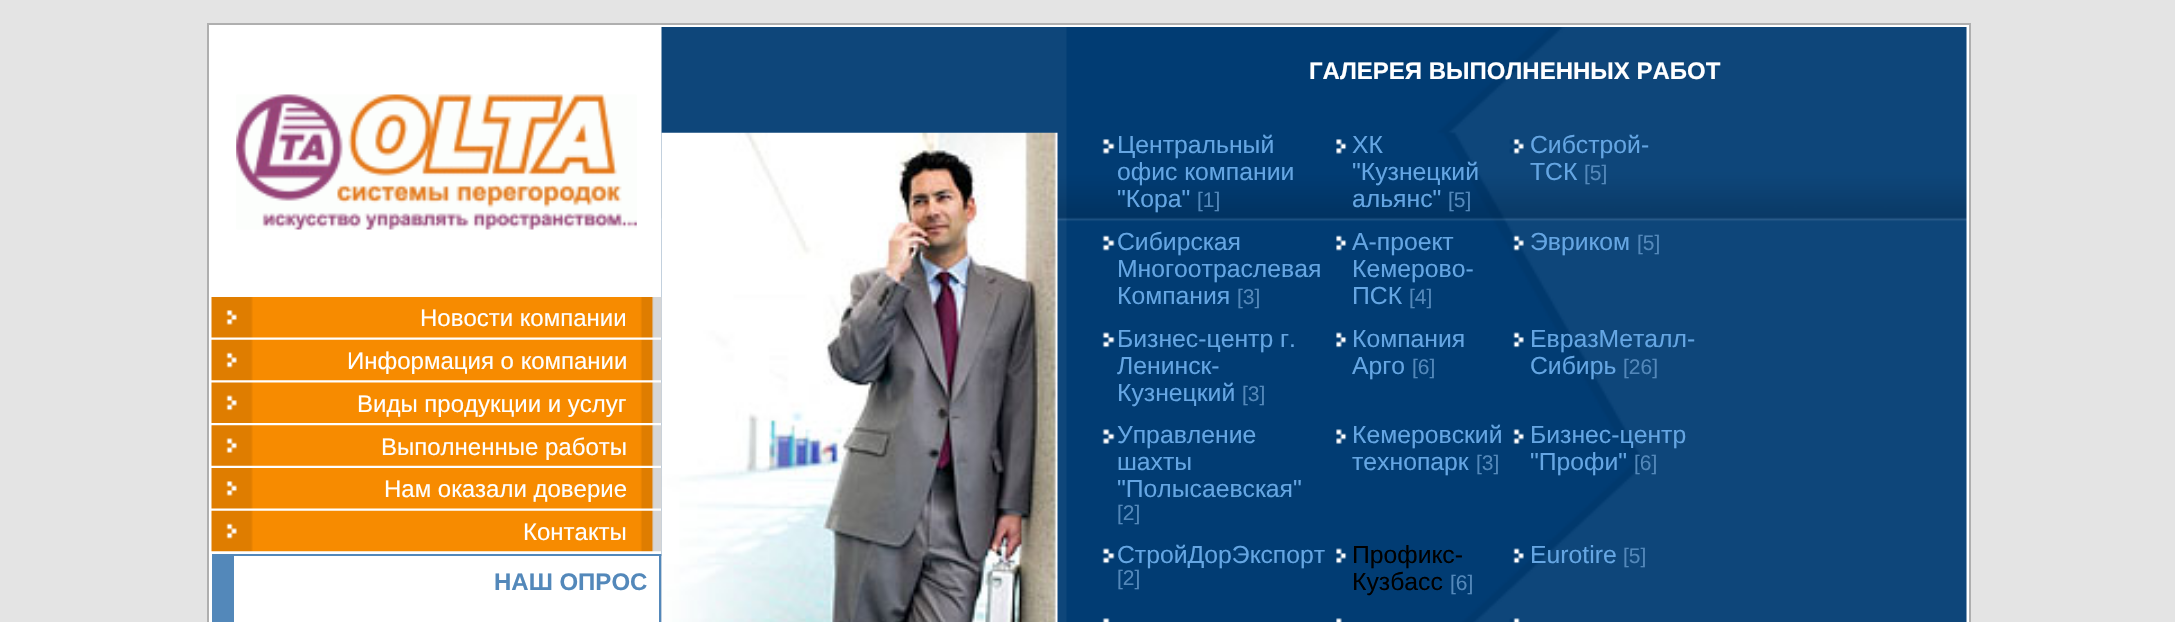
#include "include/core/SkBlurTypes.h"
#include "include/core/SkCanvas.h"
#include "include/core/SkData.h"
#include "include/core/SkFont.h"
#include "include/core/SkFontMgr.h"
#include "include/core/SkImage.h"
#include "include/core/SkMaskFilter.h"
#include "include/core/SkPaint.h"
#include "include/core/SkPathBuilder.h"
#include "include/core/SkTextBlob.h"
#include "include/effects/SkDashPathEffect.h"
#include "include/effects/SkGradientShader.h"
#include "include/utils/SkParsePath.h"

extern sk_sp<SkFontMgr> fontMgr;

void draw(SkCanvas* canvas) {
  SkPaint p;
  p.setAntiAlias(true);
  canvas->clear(SkColorSetRGB(228, 228, 228));
  p.setColor(SK_ColorWHITE);
  canvas->drawRect(SkRect::MakeLTRB(208, 24, 1970, 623), p);
  p.setStyle(SkPaint::kStroke_Style);
  p.setStrokeWidth(2);
  p.setColor(SkColorSetRGB(175, 175, 175));
  canvas->drawRect(SkRect::MakeLTRB(208, 24, 1970, 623), p);
  canvas->drawImageRect(SkImages::DeferredFromEncodedData(SkData::MakeFromFileName("images/1.png")), SkRect::MakeLTRB(236, 94, 637, 230), SkSamplingOptions());
  p.setStyle(SkPaint::kFill_Style);
  p.setColor(SkColorSetRGB(83, 136, 186));
  canvas->drawRect(SkRect::MakeLTRB(234, 554, 662, 556), p);
  canvas->drawImageRect(SkImages::DeferredFromEncodedData(SkData::MakeFromFileName("images/8.png")), SkRect::MakeLTRB(661, 27, 1967, 622), SkSamplingOptions());
  canvas->drawImageRect(SkImages::DeferredFromEncodedData(SkData::MakeFromFileName("images/9.png")), SkRect::MakeLTRB(661, 132, 1058, 622), SkSamplingOptions());
  canvas->drawImageRect(SkImages::DeferredFromEncodedData(SkData::MakeFromFileName("images/2.png")), SkRect::MakeLTRB(211, 297, 662, 338), SkSamplingOptions());
  canvas->drawImageRect(SkImages::DeferredFromEncodedData(SkData::MakeFromFileName("images/3.png")), SkRect::MakeLTRB(211, 339, 662, 381), SkSamplingOptions());
  canvas->drawImageRect(SkImages::DeferredFromEncodedData(SkData::MakeFromFileName("images/4.png")), SkRect::MakeLTRB(211, 382, 662, 423), SkSamplingOptions());
  canvas->drawImageRect(SkImages::DeferredFromEncodedData(SkData::MakeFromFileName("images/5.png")), SkRect::MakeLTRB(211, 425, 662, 466), SkSamplingOptions());
  canvas->drawImageRect(SkImages::DeferredFromEncodedData(SkData::MakeFromFileName("images/6.png")), SkRect::MakeLTRB(211, 468, 662, 509), SkSamplingOptions());
  canvas->drawImageRect(SkImages::DeferredFromEncodedData(SkData::MakeFromFileName("images/7.png")), SkRect::MakeLTRB(211, 510, 662, 552), SkSamplingOptions());
  canvas->drawRect(SkRect::MakeLTRB(659, 554, 661, 622), p);
  canvas->drawRect(SkRect::MakeLTRB(212, 554, 234, 622), p);
  canvas->drawImageRect(SkImages::DeferredFromEncodedData(SkData::MakeFromFileName("images/10.png")), SkRect::MakeLTRB(1102, 139, 1115, 154), SkSamplingOptions());
  canvas->drawImageRect(SkImages::DeferredFromEncodedData(SkData::MakeFromFileName("images/11.png")), SkRect::MakeLTRB(1336, 139, 1347, 154), SkSamplingOptions());
  canvas->drawImageRect(SkImages::DeferredFromEncodedData(SkData::MakeFromFileName("images/12.png")), SkRect::MakeLTRB(1509, 139, 1524, 154), SkSamplingOptions());
  canvas->drawImageRect(SkImages::DeferredFromEncodedData(SkData::MakeFromFileName("images/13.png")), SkRect::MakeLTRB(1102, 235, 1115, 251), SkSamplingOptions());
  canvas->drawImageRect(SkImages::DeferredFromEncodedData(SkData::MakeFromFileName("images/14.png")), SkRect::MakeLTRB(1336, 235, 1347, 251), SkSamplingOptions());
  canvas->drawImageRect(SkImages::DeferredFromEncodedData(SkData::MakeFromFileName("images/15.png")), SkRect::MakeLTRB(1510, 235, 1524, 251), SkSamplingOptions());
  canvas->drawImageRect(SkImages::DeferredFromEncodedData(SkData::MakeFromFileName("images/16.png")), SkRect::MakeLTRB(1102, 332, 1115, 348), SkSamplingOptions());
  canvas->drawImageRect(SkImages::DeferredFromEncodedData(SkData::MakeFromFileName("images/17.png")), SkRect::MakeLTRB(1336, 332, 1347, 348), SkSamplingOptions());
  canvas->drawImageRect(SkImages::DeferredFromEncodedData(SkData::MakeFromFileName("images/18.png")), SkRect::MakeLTRB(1513, 332, 1524, 348), SkSamplingOptions());
  canvas->drawImageRect(SkImages::DeferredFromEncodedData(SkData::MakeFromFileName("images/19.png")), SkRect::MakeLTRB(1102, 429, 1115, 444), SkSamplingOptions());
  canvas->drawImageRect(SkImages::DeferredFromEncodedData(SkData::MakeFromFileName("images/20.png")), SkRect::MakeLTRB(1336, 429, 1347, 444), SkSamplingOptions());
  canvas->drawImageRect(SkImages::DeferredFromEncodedData(SkData::MakeFromFileName("images/21.png")), SkRect::MakeLTRB(1513, 429, 1524, 444), SkSamplingOptions());
  canvas->drawImageRect(SkImages::DeferredFromEncodedData(SkData::MakeFromFileName("images/16.png")), SkRect::MakeLTRB(1102, 548, 1115, 564), SkSamplingOptions());
  canvas->drawImageRect(SkImages::DeferredFromEncodedData(SkData::MakeFromFileName("images/17.png")), SkRect::MakeLTRB(1336, 548, 1347, 564), SkSamplingOptions());
  canvas->drawImageRect(SkImages::DeferredFromEncodedData(SkData::MakeFromFileName("images/18.png")), SkRect::MakeLTRB(1513, 548, 1524, 564), SkSamplingOptions());
  canvas->drawImageRect(SkImages::DeferredFromEncodedData(SkData::MakeFromFileName("images/22.png")), SkRect::MakeLTRB(1102, 618, 1110, 622), SkSamplingOptions());
  canvas->drawImageRect(SkImages::DeferredFromEncodedData(SkData::MakeFromFileName("images/23.png")), SkRect::MakeLTRB(1336, 618, 1342, 622), SkSamplingOptions());
  canvas->drawImageRect(SkImages::DeferredFromEncodedData(SkData::MakeFromFileName("images/24.png")), SkRect::MakeLTRB(1509, 618, 1520, 622), SkSamplingOptions());
  SkFont font1(fontMgr->matchFamilyStyle("Liberation Sans", SkFontStyle::Normal()), 24);
  font1.setSubpixel(true);
  p.setColor(SK_ColorWHITE);
  canvas->drawString("Новости компании", 420, 326, font1, p);
  canvas->drawString("Информация о компании", 347, 369, font1, p);
  canvas->drawString("Виды продукции и услуг", 357, 412, font1, p);
  canvas->drawString("Выполненные работы", 381, 455, font1, p);
  canvas->drawString("Нам оказали доверие", 384, 497, font1, p);
  canvas->drawString("Контакты", 523, 540, font1, p);
  SkFont font2(fontMgr->matchFamilyStyle("Liberation Sans", SkFontStyle::Bold()), 24);
  font2.setSubpixel(true);
  p.setColor(SkColorSetRGB(83, 136, 186));
  canvas->drawString("НАШ ОПРОС", 494, 590, font2, p);
  p.setColor(SK_ColorWHITE);
  canvas->drawString("ГАЛЕРЕЯ ВЫПОЛНЕННЫХ РАБОТ", 1309, 79, font2, p);
  SkFont font3(fontMgr->matchFamilyStyle("Liberation Sans", SkFontStyle::Normal()), 24.75f);
  font3.setSubpixel(true);
  p.setColor(SkColorSetRGB(101, 166, 227));
  canvas->drawString("Центральный", 1117, 153, font3, p);
  canvas->drawString("офис компании", 1117, 180, font3, p);
  canvas->drawString("\"Кора\"", 1117, 207, font3, p);
  SkFont font4(fontMgr->matchFamilyStyle("Liberation Sans", SkFontStyle::Normal()), 21);
  font4.setSubpixel(true);
  p.setColor(SkColorSetRGB(83, 136, 186));
  canvas->drawString("[1]", 1197, 207, font4, p);
  p.setColor(SkColorSetRGB(101, 166, 227));
  canvas->drawString("ХК", 1352, 153, font3, p);
  canvas->drawString("\"Кузнецкий", 1352, 180, font3, p);
  canvas->drawString("альянс\"", 1352, 207, font3, p);
  p.setColor(SkColorSetRGB(83, 136, 186));
  canvas->drawString("[5]", 1448, 207, font4, p);
  p.setColor(SkColorSetRGB(101, 166, 227));
  canvas->drawString("Сибстрой-", 1530, 153, font3, p);
  canvas->drawString("ТСК", 1530, 180, font3, p);
  p.setColor(SkColorSetRGB(83, 136, 186));
  canvas->drawString("[5]", 1584, 180, font4, p);
  p.setColor(SkColorSetRGB(101, 166, 227));
  canvas->drawString("Сибирская", 1117, 250, font3, p);
  canvas->drawString("Многоотраслевая", 1117, 277, font3, p);
  canvas->drawString("Компания", 1117, 304, font3, p);
  p.setColor(SkColorSetRGB(83, 136, 186));
  canvas->drawString("[3]", 1237, 304, font4, p);
  p.setColor(SkColorSetRGB(101, 166, 227));
  canvas->drawString("А-проект", 1352, 250, font3, p);
  canvas->drawString("Кемерово-", 1352, 277, font3, p);
  canvas->drawString("ПСК", 1352, 304, font3, p);
  p.setColor(SkColorSetRGB(83, 136, 186));
  canvas->drawString("[4]", 1409, 304, font4, p);
  p.setColor(SkColorSetRGB(101, 166, 227));
  canvas->drawString("Эвриком", 1530, 250, font3, p);
  p.setColor(SkColorSetRGB(83, 136, 186));
  canvas->drawString("[5]", 1637, 250, font4, p);
  p.setColor(SkColorSetRGB(101, 166, 227));
  canvas->drawString("Бизнес-центр г.", 1117, 347, font3, p);
  canvas->drawString("Ленинск-", 1117, 374, font3, p);
  canvas->drawString("Кузнецкий", 1117, 401, font3, p);
  p.setColor(SkColorSetRGB(83, 136, 186));
  canvas->drawString("[3]", 1242, 401, font4, p);
  p.setColor(SkColorSetRGB(101, 166, 227));
  canvas->drawString("Компания", 1352, 347, font3, p);
  canvas->drawString("Арго", 1352, 374, font3, p);
  p.setColor(SkColorSetRGB(83, 136, 186));
  canvas->drawString("[6]", 1412, 374, font4, p);
  p.setColor(SkColorSetRGB(101, 166, 227));
  canvas->drawString("ЕвразМеталл-", 1530, 347, font3, p);
  canvas->drawString("Сибирь", 1530, 374, font3, p);
  p.setColor(SkColorSetRGB(83, 136, 186));
  canvas->drawString("[26]", 1623, 374, font4, p);
  p.setColor(SkColorSetRGB(101, 166, 227));
  canvas->drawString("Управление", 1117, 443, font3, p);
  canvas->drawString("шахты", 1117, 470, font3, p);
  canvas->drawString("\"Полысаевская\"", 1117, 497, font3, p);
  p.setColor(SkColorSetRGB(83, 136, 186));
  canvas->drawString("[2]", 1117, 520, font4, p);
  p.setColor(SkColorSetRGB(101, 166, 227));
  canvas->drawString("Кемеровский", 1352, 443, font3, p);
  canvas->drawString("технопарк", 1352, 470, font3, p);
  p.setColor(SkColorSetRGB(83, 136, 186));
  canvas->drawString("[3]", 1476, 470, font4, p);
  p.setColor(SkColorSetRGB(101, 166, 227));
  canvas->drawString("Бизнес-центр", 1530, 443, font3, p);
  canvas->drawString("\"Профи\"", 1530, 470, font3, p);
  p.setColor(SkColorSetRGB(83, 136, 186));
  canvas->drawString("[6]", 1634, 470, font4, p);
  p.setColor(SkColorSetRGB(101, 166, 227));
  canvas->drawString("СтройДорЭкспорт", 1117, 563, font3, p);
  p.setColor(SkColorSetRGB(83, 136, 186));
  canvas->drawString("[2]", 1117, 585, font4, p);
  p.setColor(SK_ColorBLACK);
  canvas->drawString("Профикс-", 1352, 563, font3, p);
  canvas->drawString("Кузбасс", 1352, 590, font3, p);
  p.setColor(SkColorSetRGB(83, 136, 186));
  canvas->drawString("[6]", 1450, 590, font4, p);
  p.setColor(SkColorSetRGB(101, 166, 227));
  canvas->drawString("Eurotire", 1530, 563, font3, p);
  p.setColor(SkColorSetRGB(83, 136, 186));
  canvas->drawString("[5]", 1623, 563, font4, p);
}
